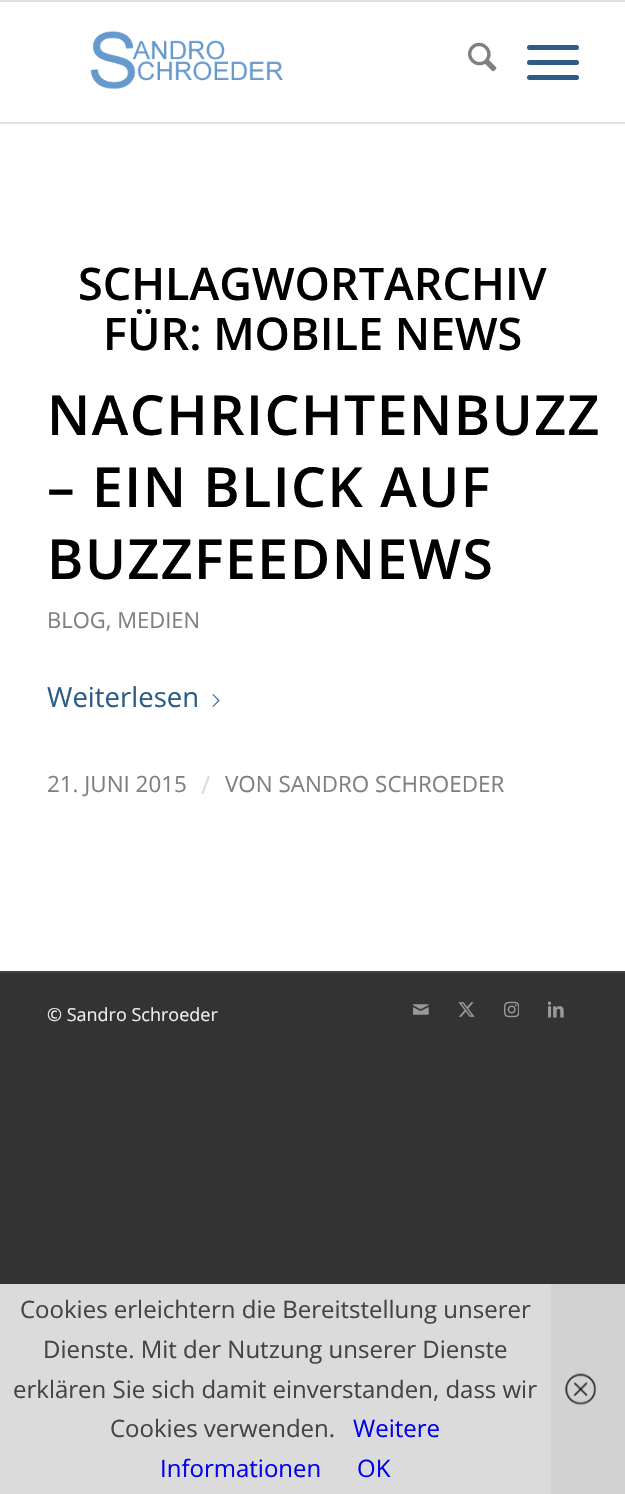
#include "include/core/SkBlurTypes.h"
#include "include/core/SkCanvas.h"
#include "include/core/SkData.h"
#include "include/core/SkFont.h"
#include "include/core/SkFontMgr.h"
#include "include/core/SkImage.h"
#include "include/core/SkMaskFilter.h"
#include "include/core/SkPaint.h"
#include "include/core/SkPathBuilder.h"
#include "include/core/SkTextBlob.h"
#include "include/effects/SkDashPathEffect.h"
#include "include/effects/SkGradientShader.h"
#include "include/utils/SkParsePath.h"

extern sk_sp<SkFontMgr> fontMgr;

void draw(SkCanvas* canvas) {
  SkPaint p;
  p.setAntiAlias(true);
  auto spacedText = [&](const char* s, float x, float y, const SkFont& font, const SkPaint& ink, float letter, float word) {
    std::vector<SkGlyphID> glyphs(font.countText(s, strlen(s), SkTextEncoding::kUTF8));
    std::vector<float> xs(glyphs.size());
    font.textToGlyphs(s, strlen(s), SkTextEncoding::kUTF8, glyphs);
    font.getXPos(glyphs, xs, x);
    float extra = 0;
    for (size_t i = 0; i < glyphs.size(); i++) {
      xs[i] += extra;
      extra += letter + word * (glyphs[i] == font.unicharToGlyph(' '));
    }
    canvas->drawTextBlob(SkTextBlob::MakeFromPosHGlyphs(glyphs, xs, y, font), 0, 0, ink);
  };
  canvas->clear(SkColorSetRGB(51, 51, 51));
  p.setColor(SK_ColorWHITE);
  canvas->drawRect(SkRect::MakeLTRB(0, 2, 625, 971), p);
  p.setColor(SkColorSetRGB(225, 225, 225));
  canvas->drawRect(SkRect::MakeLTRB(0, 0, 625, 2), p);
  canvas->drawRect(SkRect::MakeLTRB(0, 122, 625, 124), p);
  canvas->drawImageRect(SkImages::DeferredFromEncodedData(SkData::MakeFromFileName("images/1.png")), SkRect::MakeLTRB(90, 31, 283, 90), SkSamplingOptions());
  canvas->drawImageRect(SkImages::DeferredFromEncodedData(SkData::MakeFromFileName("images/2.png")), SkRect::MakeLTRB(468, 42, 497, 72), SkSamplingOptions());
  p.setColor(SkColorSetRGB(45, 92, 136));
  canvas->drawRoundRect(SkRect::MakeLTRB(527, 60, 579, 65), 2.5f, 2.5f, p);
  canvas->drawRoundRect(SkRect::MakeLTRB(527, 45, 579, 50), 2.5f, 2.5f, p);
  canvas->drawRoundRect(SkRect::MakeLTRB(527, 75, 579, 80), 2.5f, 2.5f, p);
  canvas->drawImageRect(SkImages::DeferredFromEncodedData(SkData::MakeFromFileName("images/3.png")), SkRect::MakeLTRB(212, 694, 220, 707), SkSamplingOptions());
  p.setColor(SkColorSetRGB(68, 68, 68));
  canvas->drawRect(SkRect::MakeLTRB(0, 971, 625, 973), p);
  canvas->drawImageRect(SkImages::DeferredFromEncodedData(SkData::MakeFromFileName("images/4.png")), SkRect::MakeLTRB(413, 1004, 429, 1015), SkSamplingOptions());
  canvas->drawImageRect(SkImages::DeferredFromEncodedData(SkData::MakeFromFileName("images/5.png")), SkRect::MakeLTRB(458, 1002, 475, 1017), SkSamplingOptions());
  canvas->drawImageRect(SkImages::DeferredFromEncodedData(SkData::MakeFromFileName("images/6.png")), SkRect::MakeLTRB(504, 1001, 519, 1018), SkSamplingOptions());
  canvas->drawImageRect(SkImages::DeferredFromEncodedData(SkData::MakeFromFileName("images/7.png")), SkRect::MakeLTRB(548, 1001, 564, 1018), SkSamplingOptions());
  p.setColor(SkColorSetRGB(219, 219, 219));
  canvas->drawRect(SkRect::MakeLTRB(0, 1284, 551, 1494), p);
  p.setColor(SkColorSetRGB(210, 210, 210));
  canvas->drawRect(SkRect::MakeLTRB(551, 1284, 625, 1494), p);
  canvas->drawImageRect(SkImages::DeferredFromEncodedData(SkData::MakeFromFileName("images/8.png")), SkRect::MakeLTRB(565, 1373, 596, 1405), SkSamplingOptions());
  SkFont font1(fontMgr->matchFamilyStyle("Open Sans", SkFontStyle(600, SkFontStyle::kNormal_Width, SkFontStyle::kUpright_Slant)), 45);
  font1.setSubpixel(true);
  p.setColor(SK_ColorBLACK);
  canvas->drawString("SCHLAGWORTARCHIV", 78, 300, font1, p);
  canvas->drawString("FÜR: MOBILE NEWS", 103, 350, font1, p);
  SkFont font2(fontMgr->matchFamilyStyle("Open Sans", SkFontStyle(600, SkFontStyle::kNormal_Width, SkFontStyle::kUpright_Slant)), 55.25f);
  font2.setSubpixel(true);
  spacedText("NACHRICHTENBUZZ", 47, 435, font2, p, 1.5f, 0);
  spacedText("– EIN BLICK AUF", 47, 507, font2, p, 1.5f, 0);
  spacedText("BUZZFEEDNEWS", 47, 579, font2, p, 1.5f, 0);
  SkFont font3(fontMgr->matchFamilyStyle("Open Sans", SkFontStyle::Normal()), 22);
  font3.setSubpixel(true);
  p.setColor(SkColorSetRGB(128, 128, 128));
  canvas->drawString("BLOG, MEDIEN", 47, 628, font3, p);
  SkFont font4(fontMgr->matchFamilyStyle("Open Sans", SkFontStyle::Normal()), 27.5f);
  font4.setSubpixel(true);
  p.setColor(SkColorSetRGB(45, 92, 136));
  canvas->drawString("Weiterlesen", 47, 707, font4, p);
  SkFont font5(fontMgr->matchFamilyStyle("Open Sans", SkFontStyle::Normal()), 22.4f);
  font5.setSubpixel(true);
  p.setColor(SkColorSetRGB(128, 128, 128));
  canvas->drawString("21. JUNI 2015", 47, 792, font5, p);
  SkFont font6(fontMgr->matchFamilyStyle("Open Sans", SkFontStyle::Normal()), 25);
  font6.setSubpixel(true);
  p.setColor(SkColorSetRGB(217, 217, 217));
  canvas->drawString("/", 201, 794, font6, p);
  p.setColor(SkColorSetRGB(128, 128, 128));
  canvas->drawString("VON SANDRO SCHROEDER", 225, 792, font5, p);
  SkFont font7(fontMgr->matchFamilyStyle("Open Sans", SkFontStyle::Normal()), 18);
  font7.setSubpixel(true);
  p.setColor(SkColorSetRGB(238, 238, 238));
  canvas->drawString("© Sandro Schroeder", 47, 1021, font7, p);
  SkFont font8(fontMgr->matchFamilyStyle("Open Sans", SkFontStyle::Normal()), 24);
  font8.setSubpixel(true);
  p.setColor(SkColorSetRGB(68, 68, 68));
  canvas->drawString("Cookies erleichtern die Bereitstellung unserer", 20, 1318, font8, p);
  canvas->drawString("Dienste. Mit der Nutzung unserer Dienste", 43, 1358, font8, p);
  canvas->drawString("erklären Sie sich damit einverstanden, dass wir", 13, 1398, font8, p);
  canvas->drawString("Cookies verwenden.", 110, 1437, font8, p);
  p.setColor(SkColorSetRGB(0, 0, 238));
  canvas->drawString("Weitere", 353, 1437, font8, p);
  canvas->drawString("Informationen", 160, 1477, font8, p);
  canvas->drawString("OK", 357, 1477, font8, p);
}
